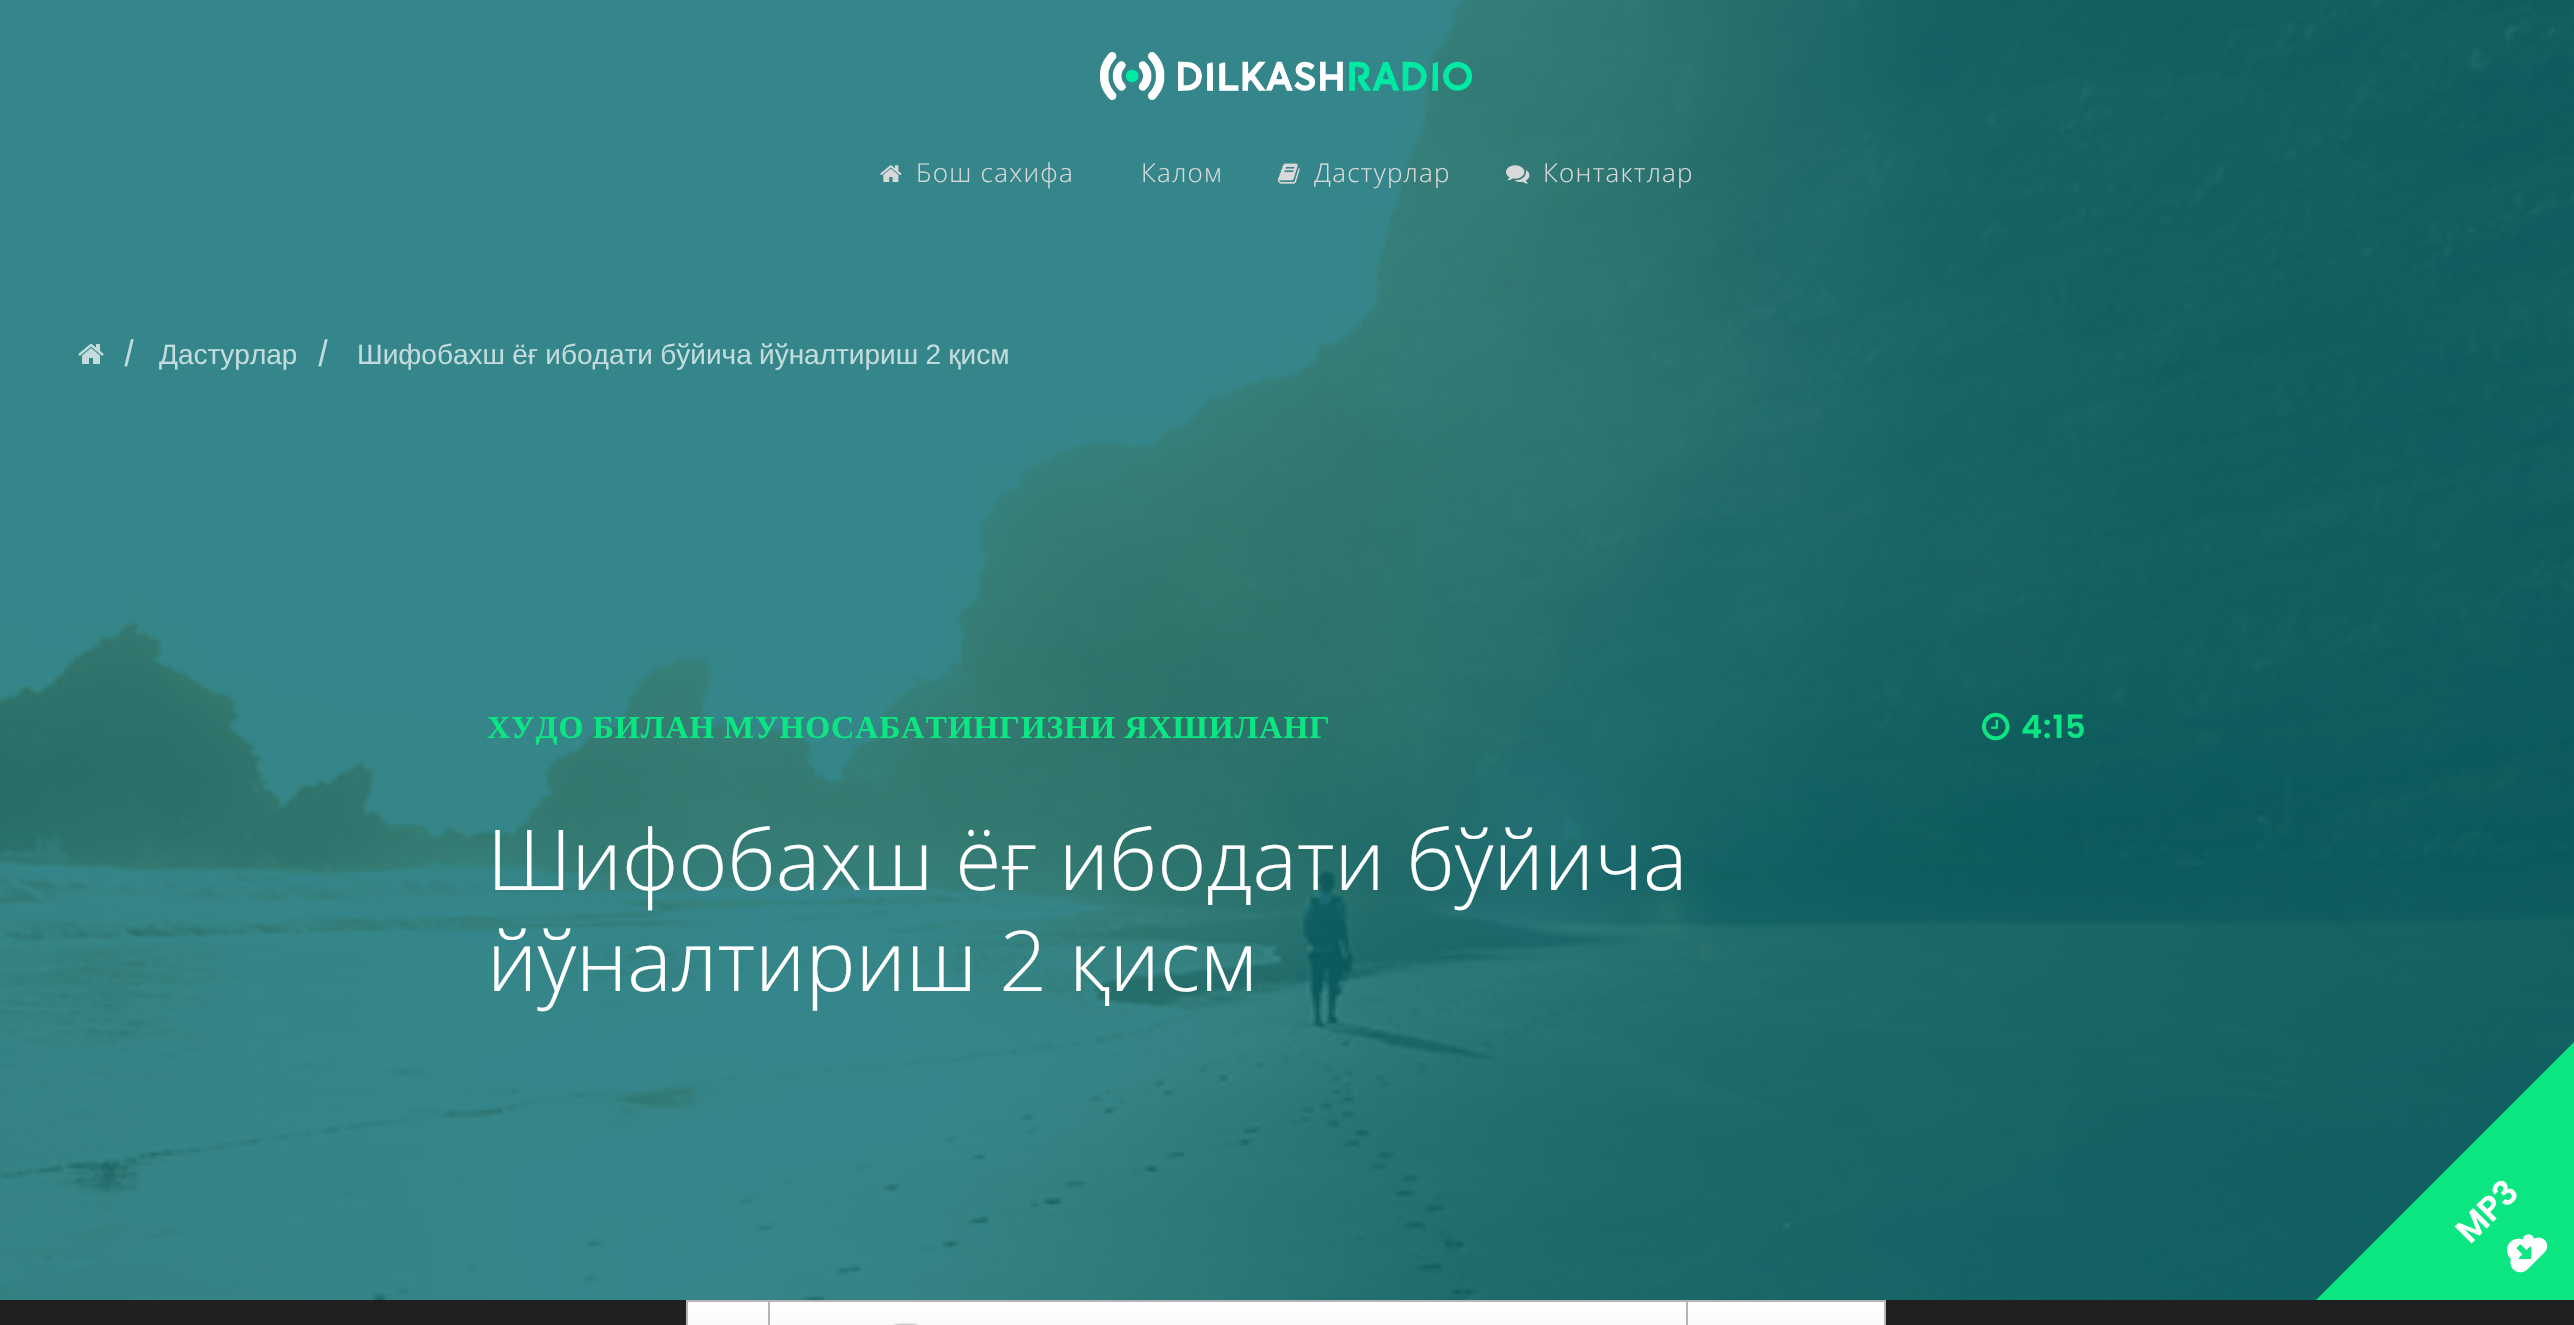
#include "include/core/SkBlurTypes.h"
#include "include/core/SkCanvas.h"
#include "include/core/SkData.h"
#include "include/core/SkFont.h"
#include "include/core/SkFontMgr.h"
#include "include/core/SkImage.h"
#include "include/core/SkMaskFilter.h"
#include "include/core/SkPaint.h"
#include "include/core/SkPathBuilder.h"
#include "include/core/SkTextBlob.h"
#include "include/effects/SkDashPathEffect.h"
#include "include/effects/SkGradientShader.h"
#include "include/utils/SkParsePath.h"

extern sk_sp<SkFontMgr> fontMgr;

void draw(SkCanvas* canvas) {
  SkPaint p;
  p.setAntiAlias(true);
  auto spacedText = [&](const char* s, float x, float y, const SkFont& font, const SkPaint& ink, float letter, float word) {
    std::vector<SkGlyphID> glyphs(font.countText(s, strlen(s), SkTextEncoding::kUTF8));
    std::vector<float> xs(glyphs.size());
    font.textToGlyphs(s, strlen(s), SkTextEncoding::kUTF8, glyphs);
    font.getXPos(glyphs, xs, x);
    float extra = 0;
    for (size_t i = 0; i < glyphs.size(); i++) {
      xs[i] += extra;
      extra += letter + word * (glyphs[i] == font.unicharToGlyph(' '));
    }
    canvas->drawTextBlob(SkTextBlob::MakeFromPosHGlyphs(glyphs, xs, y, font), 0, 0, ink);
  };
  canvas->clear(SkColorSetRGB(32, 32, 32));
  canvas->drawImageRect(SkImages::DeferredFromEncodedData(SkData::MakeFromFileName("images/5.png")), SkRect::MakeLTRB(0, 0, 2574, 1300), SkSamplingOptions());
  canvas->drawImageRect(SkImages::DeferredFromEncodedData(SkData::MakeFromFileName("images/1.png")), SkRect::MakeLTRB(1100, 52, 1472, 100), SkSamplingOptions());
  canvas->drawImageRect(SkImages::DeferredFromEncodedData(SkData::MakeFromFileName("images/2.png")), SkRect::MakeLTRB(880, 165, 902, 182), SkSamplingOptions());
  canvas->drawImageRect(SkImages::DeferredFromEncodedData(SkData::MakeFromFileName("images/3.png")), SkRect::MakeLTRB(1278, 163, 1300, 184), SkSamplingOptions());
  canvas->drawImageRect(SkImages::DeferredFromEncodedData(SkData::MakeFromFileName("images/4.png")), SkRect::MakeLTRB(1506, 165, 1530, 184), SkSamplingOptions());
  canvas->drawImageRect(SkImages::DeferredFromEncodedData(SkData::MakeFromFileName("images/6.png")), SkRect::MakeLTRB(78, 344, 104, 364), SkSamplingOptions());
  canvas->drawImageRect(SkImages::DeferredFromEncodedData(SkData::MakeFromFileName("images/7.png")), SkRect::MakeLTRB(1982, 712, 2010, 741), SkSamplingOptions());
  canvas->save();
  canvas->clipRect(SkRect::MakeLTRB(0, 0, 2574, 1300));
  p.setColor(SkColorSetRGB(12, 230, 130));
  canvas->drawPath(SkPathBuilder().moveTo(2205, 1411).lineTo(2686, 930).lineTo(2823, 1067).lineTo(2342, 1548).close().detach(), p);
  canvas->restore();
  {
    const SkColor colors[] = {SkColorSetRGB(238, 238, 238), SK_ColorWHITE};
    const float stops[] = {0, 1};
    const SkPoint ends[] = {{1286, 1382}, {1286, 1302}};
    p.setShader(SkGradientShader::MakeLinear(ends, colors, stops, 2, SkTileMode::kClamp));
    p.setAlpha(255);
  }
  canvas->drawRect(SkRect::MakeLTRB(688, 1302, 1884, 1325), p);
  p.setStyle(SkPaint::kStroke_Style);
  p.setStrokeWidth(2);
  p.setShader(nullptr);
  p.setColor(SkColorSetRGB(181, 181, 181));
  canvas->drawRect(SkRect::MakeLTRB(687, 1301, 1885, 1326), p);
  p.setStyle(SkPaint::kFill_Style);
  canvas->drawRect(SkRect::MakeLTRB(768, 1302, 770, 1325), p);
  p.setColor(SkColorSetARGB(64, 0, 0, 0));
  p.setMaskFilter(SkMaskFilter::MakeBlur(kNormal_SkBlurStyle, 1));
  canvas->drawRoundRect(SkRect::MakeLTRB(888, 1324, 924, 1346), 18, 18, p);
  p.setMaskFilter(nullptr);
  p.setColor(SkColorSetRGB(181, 181, 181));
  canvas->drawRect(SkRect::MakeLTRB(1686, 1302, 1688, 1325), p);
  SkFont font1(fontMgr->matchFamilyStyle("Open Sans", SkFontStyle(300, SkFontStyle::kNormal_Width, SkFontStyle::kUpright_Slant)), 26);
  font1.setSubpixel(true);
  p.setColor(SkColorSetRGB(217, 217, 217));
  spacedText("Бош сахифа", 916, 182, font1, p, 1.25f, 0);
  spacedText("Калом", 1141, 182, font1, p, 1.25f, 0);
  spacedText("Дастурлар", 1314, 182, font1, p, 1.25f, 0);
  spacedText("Контактлар", 1543, 182, font1, p, 1.25f, 0);
  SkFont font2(fontMgr->matchFamilyStyle("Poppins", SkFontStyle(500, SkFontStyle::kNormal_Width, SkFontStyle::kUpright_Slant)), 24);
  font2.setSubpixel(true);
  p.setColor(SkColorSetRGB(194, 219, 220));
  canvas->drawString("/", 123, 362, font2, p);
  SkFont font3(fontMgr->matchFamilyStyle("Liberation Sans", SkFontStyle::Normal()), 28);
  font3.setSubpixel(true);
  canvas->drawString("Дастурлар", 159, 364, font3, p);
  canvas->drawString("/", 317, 362, font2, p);
  spacedText("Шифобахш ёғ ибодати бўйича йўналтириш 2 қисм", 357, 364, font3, p, 0, -0.5f);
  SkFont font4(fontMgr->matchFamilyStyle("Liberation Serif", SkFontStyle::Bold()), 32);
  font4.setSubpixel(true);
  p.setColor(SkColorSetRGB(12, 230, 130));
  spacedText("ХУДО БИЛАН МУНОСАБАТИНГИЗНИ ЯХШИЛАНГ", 487, 738, font4, p, 0.95f, -0.5f);
  SkFont font5(fontMgr->matchFamilyStyle("Poppins", SkFontStyle(600, SkFontStyle::kNormal_Width, SkFontStyle::kUpright_Slant)), 32);
  font5.setSubpixel(true);
  spacedText("4:15", 2021, 738, font5, p, 0.95f, 0);
  SkFont font6(fontMgr->matchFamilyStyle("Open Sans", SkFontStyle(300, SkFontStyle::kNormal_Width, SkFontStyle::kUpright_Slant)), 84);
  font6.setSubpixel(true);
  p.setColor(SK_ColorWHITE);
  canvas->drawString("Шифобахш ёғ ибодати бўйича", 487, 890, font6, p);
  canvas->drawString("йўналтириш 2 қисм", 487, 991, font6, p);
  SkFont font7(fontMgr->matchFamilyStyle("Poppins", SkFontStyle(600, SkFontStyle::kNormal_Width, SkFontStyle::kUpright_Slant)), 34);
  font7.setSubpixel(true);
  canvas->save();
  canvas->rotate(-45, 2470, 1245);
  canvas->drawString("MP3", 2470, 1245, font7, p);
  canvas->restore();
  canvas->drawImageRect(SkImages::DeferredFromEncodedData(SkData::MakeFromFileName("images/8.png")), SkRect::MakeLTRB(2507, 1234, 2548, 1273), SkSamplingOptions());
}
